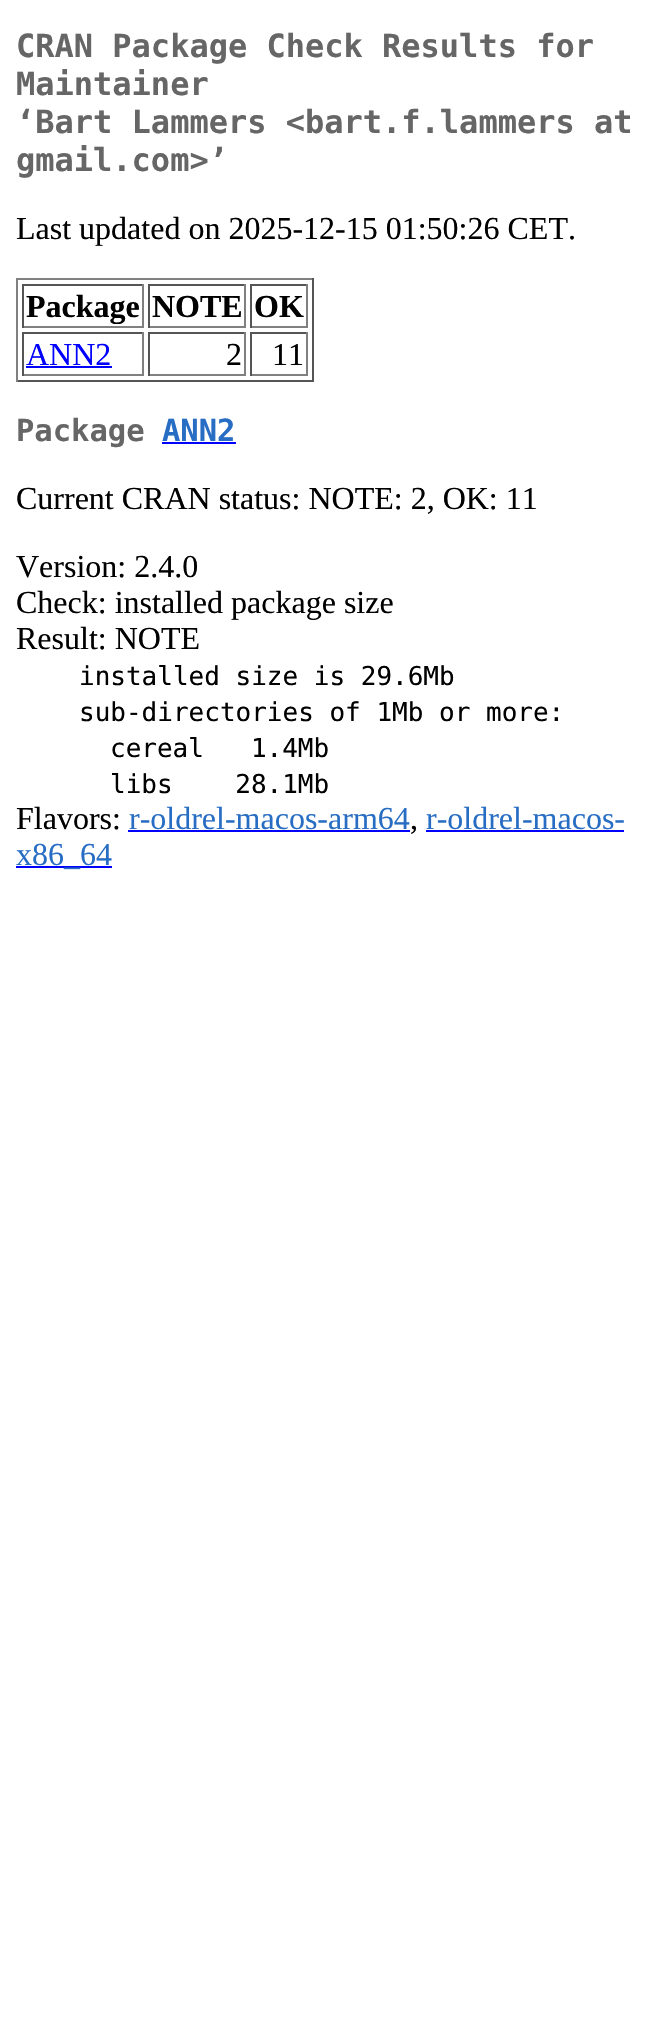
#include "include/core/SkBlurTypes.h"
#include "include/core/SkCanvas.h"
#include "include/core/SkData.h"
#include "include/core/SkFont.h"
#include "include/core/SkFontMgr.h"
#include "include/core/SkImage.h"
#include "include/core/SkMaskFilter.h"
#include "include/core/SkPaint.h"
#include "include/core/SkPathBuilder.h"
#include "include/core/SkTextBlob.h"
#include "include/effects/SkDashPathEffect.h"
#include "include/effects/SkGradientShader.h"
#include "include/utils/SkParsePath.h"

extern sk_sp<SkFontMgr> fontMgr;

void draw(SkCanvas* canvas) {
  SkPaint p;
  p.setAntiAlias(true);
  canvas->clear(SK_ColorWHITE);
  p.setColor(SkColorSetRGB(128, 128, 128));
  canvas->drawRect(SkRect::MakeLTRB(16, 278, 314, 280), p);
  p.setColor(SkColorSetRGB(85, 85, 85));
  canvas->drawRect(SkRect::MakeLTRB(312, 278, 314, 382), p);
  canvas->drawRect(SkRect::MakeLTRB(16, 380, 314, 382), p);
  p.setColor(SkColorSetRGB(128, 128, 128));
  canvas->drawRect(SkRect::MakeLTRB(16, 278, 18, 382), p);
  p.setColor(SkColorSetRGB(85, 85, 85));
  canvas->drawRect(SkRect::MakeLTRB(22, 284, 144, 286), p);
  p.setColor(SkColorSetRGB(128, 128, 128));
  canvas->drawRect(SkRect::MakeLTRB(142, 284, 144, 328), p);
  canvas->drawRect(SkRect::MakeLTRB(22, 326, 144, 328), p);
  p.setColor(SkColorSetRGB(85, 85, 85));
  canvas->drawRect(SkRect::MakeLTRB(22, 284, 24, 328), p);
  canvas->drawRect(SkRect::MakeLTRB(148, 284, 246, 286), p);
  p.setColor(SkColorSetRGB(128, 128, 128));
  canvas->drawRect(SkRect::MakeLTRB(244, 284, 246, 328), p);
  canvas->drawRect(SkRect::MakeLTRB(148, 326, 246, 328), p);
  p.setColor(SkColorSetRGB(85, 85, 85));
  canvas->drawRect(SkRect::MakeLTRB(148, 284, 150, 328), p);
  canvas->drawRect(SkRect::MakeLTRB(250, 284, 308, 286), p);
  p.setColor(SkColorSetRGB(128, 128, 128));
  canvas->drawRect(SkRect::MakeLTRB(306, 284, 308, 328), p);
  canvas->drawRect(SkRect::MakeLTRB(250, 326, 308, 328), p);
  p.setColor(SkColorSetRGB(85, 85, 85));
  canvas->drawRect(SkRect::MakeLTRB(250, 284, 252, 328), p);
  canvas->drawRect(SkRect::MakeLTRB(22, 332, 144, 334), p);
  p.setColor(SkColorSetRGB(128, 128, 128));
  canvas->drawRect(SkRect::MakeLTRB(142, 332, 144, 376), p);
  canvas->drawRect(SkRect::MakeLTRB(22, 374, 144, 376), p);
  p.setColor(SkColorSetRGB(85, 85, 85));
  canvas->drawRect(SkRect::MakeLTRB(22, 332, 24, 376), p);
  p.setColor(SkColorSetRGB(0, 0, 255));
  canvas->drawRect(SkRect::MakeLTRB(26, 366, 112, 368), p);
  p.setColor(SkColorSetRGB(85, 85, 85));
  canvas->drawRect(SkRect::MakeLTRB(148, 332, 246, 334), p);
  p.setColor(SkColorSetRGB(128, 128, 128));
  canvas->drawRect(SkRect::MakeLTRB(244, 332, 246, 376), p);
  canvas->drawRect(SkRect::MakeLTRB(148, 374, 246, 376), p);
  p.setColor(SkColorSetRGB(85, 85, 85));
  canvas->drawRect(SkRect::MakeLTRB(148, 332, 150, 376), p);
  canvas->drawRect(SkRect::MakeLTRB(250, 332, 308, 334), p);
  p.setColor(SkColorSetRGB(128, 128, 128));
  canvas->drawRect(SkRect::MakeLTRB(306, 332, 308, 376), p);
  canvas->drawRect(SkRect::MakeLTRB(250, 374, 308, 376), p);
  p.setColor(SkColorSetRGB(85, 85, 85));
  canvas->drawRect(SkRect::MakeLTRB(250, 332, 252, 376), p);
  p.setColor(SkColorSetRGB(0, 0, 255));
  canvas->drawRect(SkRect::MakeLTRB(162, 442, 236, 444), p);
  canvas->drawRect(SkRect::MakeLTRB(128, 830, 410, 832), p);
  canvas->drawRect(SkRect::MakeLTRB(426, 830, 624, 832), p);
  canvas->drawRect(SkRect::MakeLTRB(16, 866, 112, 868), p);
  SkFont font1(fontMgr->matchFamilyStyle("DejaVu Sans Mono", SkFontStyle::Bold()), 32);
  font1.setSubpixel(true);
  p.setColor(SkColorSetRGB(102, 102, 102));
  canvas->drawString("CRAN Package Check Results for", 16, 57, font1, p);
  canvas->drawString("Maintainer", 16, 95, font1, p);
  canvas->drawString("‘Bart Lammers <bart.f.lammers at", 16, 133, font1, p);
  canvas->drawString("gmail.com>’", 16, 171, font1, p);
  SkFont font2(fontMgr->matchFamilyStyle("Liberation Serif", SkFontStyle::Normal()), 32);
  font2.setSubpixel(true);
  p.setColor(SK_ColorBLACK);
  canvas->drawString("Last updated on 2025-12-15 01:50:26 CET.", 16, 239, font2, p);
  SkFont font3(fontMgr->matchFamilyStyle("Liberation Serif", SkFontStyle::Bold()), 32);
  font3.setSubpixel(true);
  canvas->drawString("Package", 26, 317, font3, p);
  canvas->drawString("NOTE", 152, 317, font3, p);
  canvas->drawString("OK", 254, 317, font3, p);
  p.setColor(SkColorSetRGB(0, 0, 255));
  canvas->drawString("ANN2", 26, 365, font2, p);
  p.setColor(SK_ColorBLACK);
  canvas->drawString("2", 226, 365, font2, p);
  canvas->drawString("11", 272, 365, font2, p);
  SkFont font4(fontMgr->matchFamilyStyle("DejaVu Sans Mono", SkFontStyle::Bold()), 30.5f);
  font4.setSubpixel(true);
  p.setColor(SkColorSetRGB(102, 102, 102));
  canvas->drawString("Package", 16, 441, font4, p);
  p.setColor(SkColorSetRGB(39, 109, 195));
  canvas->drawString("ANN2", 162, 441, font4, p);
  p.setColor(SK_ColorBLACK);
  canvas->drawString("Current CRAN status: NOTE: 2, OK: 11", 16, 509, font2, p);
  canvas->drawString("Version: 2.4.0", 16, 577, font2, p);
  canvas->drawString("Check: installed package size", 16, 613, font2, p);
  canvas->drawString("Result: NOTE", 16, 649, font2, p);
  SkFont font5(fontMgr->matchFamilyStyle("DejaVu Sans Mono", SkFontStyle::Normal()), 26);
  font5.setSubpixel(true);
  canvas->drawString("installed size is 29.6Mb", 79, 685, font5, p);
  canvas->drawString("sub-directories of 1Mb or more:", 79, 721, font5, p);
  canvas->drawString("cereal   1.4Mb", 110, 757, font5, p);
  canvas->drawString("libs    28.1Mb", 110, 793, font5, p);
  canvas->drawString("Flavors:", 16, 829, font2, p);
  p.setColor(SkColorSetRGB(39, 109, 195));
  canvas->drawString("r-oldrel-macos-arm64", 129, 829, font2, p);
  p.setColor(SK_ColorBLACK);
  canvas->drawString(",", 410, 829, font2, p);
  p.setColor(SkColorSetRGB(39, 109, 195));
  canvas->drawString("r-oldrel-macos-", 426, 829, font2, p);
  canvas->drawString("x86_64", 16, 865, font2, p);
}
